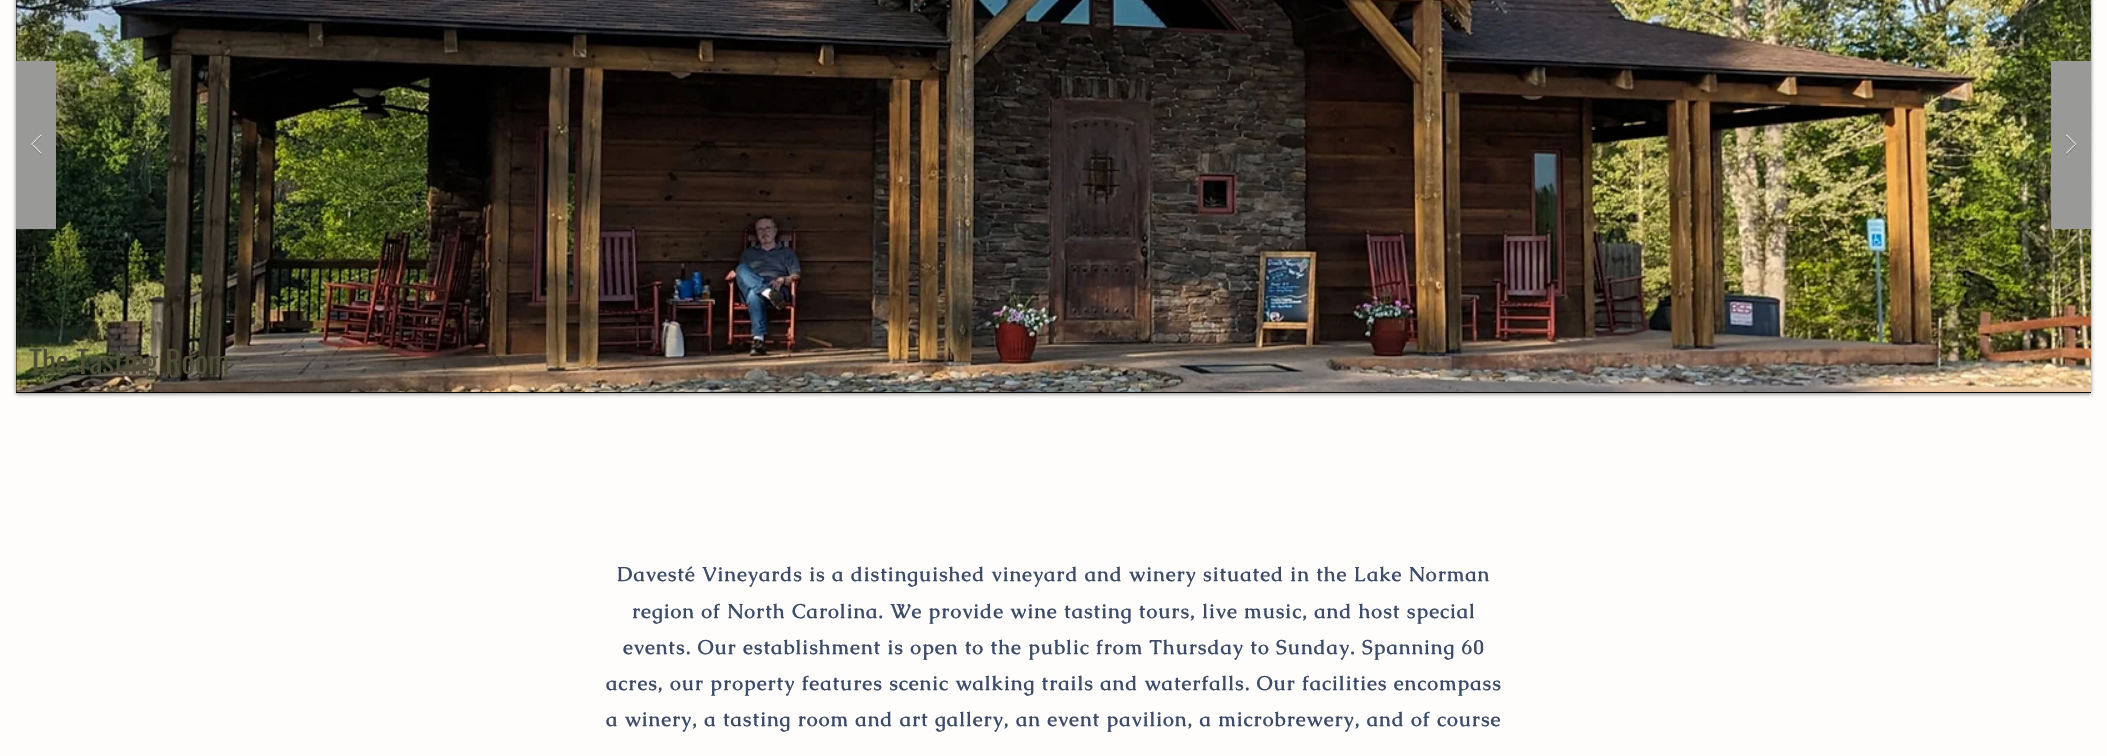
#include "include/core/SkBlurTypes.h"
#include "include/core/SkCanvas.h"
#include "include/core/SkData.h"
#include "include/core/SkFont.h"
#include "include/core/SkFontMgr.h"
#include "include/core/SkImage.h"
#include "include/core/SkMaskFilter.h"
#include "include/core/SkPaint.h"
#include "include/core/SkPathBuilder.h"
#include "include/core/SkTextBlob.h"
#include "include/effects/SkDashPathEffect.h"
#include "include/effects/SkGradientShader.h"
#include "include/utils/SkParsePath.h"

extern sk_sp<SkFontMgr> fontMgr;

void draw(SkCanvas* canvas) {
  SkPaint p;
  p.setAntiAlias(true);
  auto spacedText = [&](const char* s, float x, float y, const SkFont& font, const SkPaint& ink, float letter, float word) {
    std::vector<SkGlyphID> glyphs(font.countText(s, strlen(s), SkTextEncoding::kUTF8));
    std::vector<float> xs(glyphs.size());
    font.textToGlyphs(s, strlen(s), SkTextEncoding::kUTF8, glyphs);
    font.getXPos(glyphs, xs, x);
    float extra = 0;
    for (size_t i = 0; i < glyphs.size(); i++) {
      xs[i] += extra;
      extra += letter + word * (glyphs[i] == font.unicharToGlyph(' '));
    }
    canvas->drawTextBlob(SkTextBlob::MakeFromPosHGlyphs(glyphs, xs, y, font), 0, 0, ink);
  };
  canvas->clear(SkColorSetRGB(255, 253, 251));
  p.setColor(SkColorSetARGB(128, 0, 0, 0));
  p.setMaskFilter(SkMaskFilter::MakeBlur(kNormal_SkBlurStyle, 2));
  canvas->drawRect(SkRect::MakeLTRB(16, -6, 2091, 394), p);
  p.setMaskFilter(nullptr);
  p.setColor(SK_ColorBLACK);
  canvas->drawRect(SkRect::MakeLTRB(16, 0, 2091, 393), p);
  canvas->drawImageRect(SkImages::DeferredFromEncodedData(SkData::MakeFromFileName("images/3.png")), SkRect::MakeLTRB(16, 0, 2092, 393), SkSamplingOptions());
  p.setColor(SkColorSetRGB(153, 153, 151));
  canvas->drawRect(SkRect::MakeLTRB(16, 61, 56, 229), p);
  canvas->drawImageRect(SkImages::DeferredFromEncodedData(SkData::MakeFromFileName("images/1.png")), SkRect::MakeLTRB(31, 134, 42, 155), SkSamplingOptions());
  canvas->drawRect(SkRect::MakeLTRB(2051, 61, 2091, 229), p);
  canvas->drawImageRect(SkImages::DeferredFromEncodedData(SkData::MakeFromFileName("images/2.png")), SkRect::MakeLTRB(2066, 134, 2077, 155), SkSamplingOptions());
  SkFont font1(fontMgr->matchFamilyStyle("Oswald", SkFontStyle::Normal()), 31.25f);
  font1.setSubpixel(true);
  p.setColor(SkColorSetRGB(78, 77, 53));
  canvas->drawString("The Tasting Room", 29, 374, font1, p);
  SkFont font2(fontMgr->matchFamilyStyle("Caudex", SkFontStyle::Bold()), 20);
  font2.setSubpixel(true);
  p.setColor(SkColorSetRGB(61, 77, 105));
  spacedText("Davesté Vineyards is a distinguished vineyard and winery situated in the Lake Norman", 617, 581, font2, p, 1, 0);
  spacedText("region of North Carolina. We provide wine tasting tours, live music, and host special", 632, 618, font2, p, 1, 0);
  spacedText("events. Our establishment is open to the public from Thursday to Sunday. Spanning 60", 623, 654, font2, p, 1, 0);
  spacedText("acres, our property features scenic walking trails and waterfalls. Our facilities encompass", 606, 690, font2, p, 1, 0);
  spacedText("a winery, a tasting room and art gallery, an event pavilion, a microbrewery, and of course", 606, 726, font2, p, 1, 0);
}
